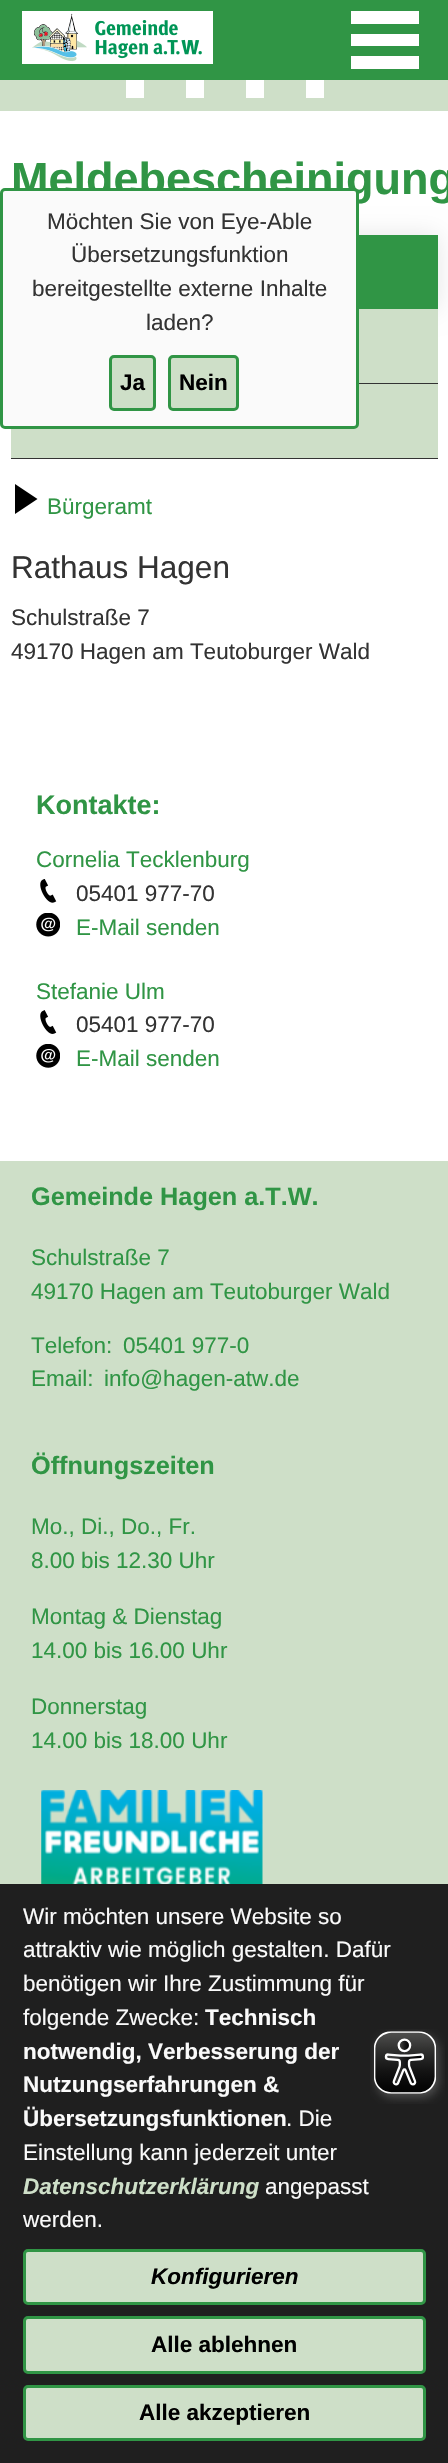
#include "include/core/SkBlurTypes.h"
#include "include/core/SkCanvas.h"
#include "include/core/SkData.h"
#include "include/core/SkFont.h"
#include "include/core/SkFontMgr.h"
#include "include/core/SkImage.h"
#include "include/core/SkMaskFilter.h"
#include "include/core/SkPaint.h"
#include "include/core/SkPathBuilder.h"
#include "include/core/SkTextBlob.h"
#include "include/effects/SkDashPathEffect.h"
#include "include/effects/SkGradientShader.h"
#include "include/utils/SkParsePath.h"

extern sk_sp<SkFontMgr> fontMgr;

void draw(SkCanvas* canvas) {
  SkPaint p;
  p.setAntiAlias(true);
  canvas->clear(SK_ColorWHITE);
  p.setColor(SkColorSetRGB(206, 223, 200));
  canvas->drawRect(SkRect::MakeLTRB(0, 80, 448, 111), p);
  p.setColor(SK_ColorWHITE);
  canvas->drawRect(SkRect::MakeLTRB(125.5f, 79.5f, 144.5f, 98.5f), p);
  p.setStyle(SkPaint::kStroke_Style);
  p.setStrokeWidth(1);
  p.setColor(SkColorSetRGB(206, 223, 200));
  canvas->drawRect(SkRect::MakeLTRB(125.5f, 79.5f, 144.5f, 98.5f), p);
  p.setStyle(SkPaint::kFill_Style);
  p.setColor(SK_ColorWHITE);
  canvas->drawRect(SkRect::MakeLTRB(185.5f, 79.5f, 204.5f, 98.5f), p);
  p.setStyle(SkPaint::kStroke_Style);
  p.setColor(SkColorSetRGB(206, 223, 200));
  canvas->drawRect(SkRect::MakeLTRB(185.5f, 79.5f, 204.5f, 98.5f), p);
  p.setStyle(SkPaint::kFill_Style);
  p.setColor(SK_ColorWHITE);
  canvas->drawRect(SkRect::MakeLTRB(245.5f, 79.5f, 264.5f, 98.5f), p);
  p.setStyle(SkPaint::kStroke_Style);
  p.setColor(SkColorSetRGB(206, 223, 200));
  canvas->drawRect(SkRect::MakeLTRB(245.5f, 79.5f, 264.5f, 98.5f), p);
  p.setStyle(SkPaint::kFill_Style);
  p.setColor(SK_ColorWHITE);
  canvas->drawRect(SkRect::MakeLTRB(305.5f, 79.5f, 324.5f, 98.5f), p);
  p.setStyle(SkPaint::kStroke_Style);
  p.setColor(SkColorSetRGB(206, 223, 200));
  canvas->drawRect(SkRect::MakeLTRB(305.5f, 79.5f, 324.5f, 98.5f), p);
  p.setStyle(SkPaint::kFill_Style);
  p.setColor(SkColorSetRGB(48, 149, 69));
  canvas->drawRect(SkRect::MakeLTRB(0, 0, 448, 80), p);
  p.setColor(SK_ColorWHITE);
  canvas->drawRect(SkRect::MakeLTRB(351, 34, 419, 46), p);
  canvas->drawRect(SkRect::MakeLTRB(351, 11, 419, 24), p);
  canvas->drawRect(SkRect::MakeLTRB(351, 56, 419, 69), p);
  canvas->drawImageRect(SkImages::DeferredFromEncodedData(SkData::MakeFromFileName("images/1.png")), SkRect::MakeLTRB(22, 11, 213, 64), SkSamplingOptions());
  p.setColor(SkColorSetARGB(26, 0, 0, 0));
  p.setMaskFilter(SkMaskFilter::MakeBlur(kNormal_SkBlurStyle, 12.5f));
  canvas->drawRect(SkRect::MakeLTRB(11, 235, 438, 309), p);
  p.setMaskFilter(nullptr);
  p.setColor(SkColorSetRGB(48, 149, 69));
  canvas->drawRect(SkRect::MakeLTRB(359, 235, 438, 309), p);
  p.setColor(SkColorSetRGB(206, 223, 200));
  canvas->drawRect(SkRect::MakeLTRB(359, 309, 438, 383), p);
  p.setColor(SkColorSetRGB(51, 51, 51));
  canvas->drawRect(SkRect::MakeLTRB(359, 383, 438, 384), p);
  p.setColor(SkColorSetRGB(206, 223, 200));
  canvas->drawRect(SkRect::MakeLTRB(11, 384, 438, 458), p);
  p.setColor(SkColorSetRGB(51, 51, 51));
  canvas->drawRect(SkRect::MakeLTRB(11, 458, 438, 459), p);
  p.setColor(SK_ColorBLACK);
  canvas->drawPath(SkPathBuilder().moveTo(37.5f, 499).lineTo(15, 514).lineTo(15, 484).close().detach(), p);
  canvas->drawImageRect(SkImages::DeferredFromEncodedData(SkData::MakeFromFileName("images/2.png")), SkRect::MakeLTRB(40, 879, 57, 903), SkSamplingOptions());
  canvas->drawImageRect(SkImages::DeferredFromEncodedData(SkData::MakeFromFileName("images/3.png")), SkRect::MakeLTRB(36, 913, 60, 937), SkSamplingOptions());
  canvas->drawImageRect(SkImages::DeferredFromEncodedData(SkData::MakeFromFileName("images/4.png")), SkRect::MakeLTRB(40, 1010, 57, 1034), SkSamplingOptions());
  canvas->drawImageRect(SkImages::DeferredFromEncodedData(SkData::MakeFromFileName("images/5.png")), SkRect::MakeLTRB(36, 1044, 60, 1068), SkSamplingOptions());
  p.setColor(SkColorSetRGB(206, 223, 200));
  canvas->drawRect(SkRect::MakeLTRB(0, 1161, 448, 1884), p);
  canvas->drawImageRect(SkImages::DeferredFromEncodedData(SkData::MakeFromFileName("images/6.png")), SkRect::MakeLTRB(41, 1790, 263, 1884), SkSamplingOptions());
  p.setColor(SkColorSetRGB(31, 31, 31));
  canvas->drawRect(SkRect::MakeLTRB(0, 1884, 448, 2463), p);
  p.setColor(SkColorSetRGB(206, 223, 200));
  canvas->drawRoundRect(SkRect::MakeLTRB(24.5f, 2250.5f, 424.5f, 2303.5f), 3.5f, 3.5f, p);
  p.setStyle(SkPaint::kStroke_Style);
  p.setStrokeWidth(3);
  p.setColor(SkColorSetRGB(48, 149, 69));
  canvas->drawRoundRect(SkRect::MakeLTRB(24.5f, 2250.5f, 424.5f, 2303.5f), 3.5f, 3.5f, p);
  p.setStyle(SkPaint::kFill_Style);
  p.setColor(SkColorSetRGB(206, 223, 200));
  canvas->drawRoundRect(SkRect::MakeLTRB(24.5f, 2317.5f, 424.5f, 2372.5f), 3.5f, 3.5f, p);
  p.setStyle(SkPaint::kStroke_Style);
  p.setColor(SkColorSetRGB(48, 149, 69));
  canvas->drawRoundRect(SkRect::MakeLTRB(24.5f, 2317.5f, 424.5f, 2372.5f), 3.5f, 3.5f, p);
  p.setStyle(SkPaint::kFill_Style);
  p.setColor(SkColorSetRGB(206, 223, 200));
  canvas->drawRoundRect(SkRect::MakeLTRB(24.5f, 2386.5f, 424.5f, 2439.5f), 3.5f, 3.5f, p);
  p.setStyle(SkPaint::kStroke_Style);
  p.setColor(SkColorSetRGB(48, 149, 69));
  canvas->drawRoundRect(SkRect::MakeLTRB(24.5f, 2386.5f, 424.5f, 2439.5f), 3.5f, 3.5f, p);
  canvas->drawImageRect(SkImages::DeferredFromEncodedData(SkData::MakeFromFileName("images/7.png")), SkRect::MakeLTRB(370, 2029, 445, 2104), SkSamplingOptions());
  SkFont font1(fontMgr->matchFamilyStyle("Liberation Sans", SkFontStyle::Bold()), 45);
  font1.setSubpixel(true);
  p.setStyle(SkPaint::kFill_Style);
  canvas->drawString("Meldebescheinigung", 11, 194, font1, p);
  SkFont font2(fontMgr->matchFamilyStyle("Liberation Sans", SkFontStyle::Normal()), 22.5f);
  font2.setSubpixel(true);
  canvas->drawString("Bürgeramt", 47, 514, font2, p);
  SkFont font3(fontMgr->matchFamilyStyle("Liberation Sans", SkFontStyle::Normal()), 31.5f);
  font3.setSubpixel(true);
  p.setColor(SkColorSetRGB(51, 51, 51));
  canvas->drawString("Rathaus Hagen", 11, 578, font3, p);
  canvas->drawString("Schulstraße 7", 11, 625, font2, p);
  canvas->drawString("49170 Hagen am Teutoburger Wald", 11, 659, font2, p);
  SkFont font4(fontMgr->matchFamilyStyle("Liberation Sans", SkFontStyle::Bold()), 27);
  font4.setSubpixel(true);
  p.setColor(SkColorSetRGB(48, 149, 69));
  canvas->drawString("Kontakte:", 36, 814, font4, p);
  canvas->drawString("Cornelia Tecklenburg", 36, 867, font2, p);
  p.setColor(SkColorSetRGB(51, 51, 51));
  canvas->drawString("05401 977-70", 76, 901, font2, p);
  p.setColor(SkColorSetRGB(48, 149, 69));
  canvas->drawString("E-Mail senden", 76, 935, font2, p);
  canvas->drawString("Stefanie Ulm", 36, 999, font2, p);
  p.setColor(SkColorSetRGB(51, 51, 51));
  canvas->drawString("05401 977-70", 76, 1032, font2, p);
  p.setColor(SkColorSetRGB(48, 149, 69));
  canvas->drawString("E-Mail senden", 76, 1066, font2, p);
  SkFont font5(fontMgr->matchFamilyStyle("Liberation Sans", SkFontStyle::Bold()), 25.25f);
  font5.setSubpixel(true);
  canvas->drawString("Gemeinde Hagen a.T.W.", 31, 1205, font5, p);
  canvas->drawString("Schulstraße 7", 31, 1265, font2, p);
  canvas->drawString("49170 Hagen am Teutoburger Wald", 31, 1299, font2, p);
  canvas->drawString("Telefon:", 31, 1353, font2, p);
  canvas->drawString("05401 977-0", 123, 1353, font2, p);
  canvas->drawString("Email:", 31, 1386, font2, p);
  canvas->drawString("info@hagen-atw.de", 104, 1386, font2, p);
  canvas->drawString("Öffnungszeiten", 31, 1474, font5, p);
  canvas->drawString("Mo., Di., Do., Fr.", 31, 1534, font2, p);
  canvas->drawString("8.00 bis 12.30 Uhr", 31, 1568, font2, p);
  canvas->drawString("Montag & Dienstag", 31, 1624, font2, p);
  canvas->drawString("14.00 bis 16.00 Uhr", 31, 1658, font2, p);
  canvas->drawString("Donnerstag", 31, 1714, font2, p);
  canvas->drawString("14.00 bis 18.00 Uhr", 31, 1748, font2, p);
  p.setColor(SkColorSetRGB(250, 250, 250));
  canvas->drawRoundRect(SkRect::MakeLTRB(1.5f, 189.5f, 357.5f, 427.5f), 3.5f, 3.5f, p);
  p.setStyle(SkPaint::kStroke_Style);
  p.setColor(SkColorSetRGB(48, 149, 69));
  canvas->drawRoundRect(SkRect::MakeLTRB(1.5f, 189.5f, 357.5f, 427.5f), 3.5f, 3.5f, p);
  p.setStyle(SkPaint::kFill_Style);
  p.setColor(SkColorSetRGB(51, 51, 51));
  canvas->drawString("Möchten Sie von Eye-Able", 47, 229, font2, p);
  canvas->drawString("Übersetzungsfunktion", 71, 262, font2, p);
  canvas->drawString("bereitgestellte externe Inhalte", 32, 296, font2, p);
  canvas->drawString("laden?", 146, 330, font2, p);
  p.setColor(SkColorSetRGB(206, 223, 200));
  canvas->drawRoundRect(SkRect::MakeLTRB(110.5f, 356.5f, 154.5f, 409.5f), 3.5f, 3.5f, p);
  p.setStyle(SkPaint::kStroke_Style);
  p.setColor(SkColorSetRGB(48, 149, 69));
  canvas->drawRoundRect(SkRect::MakeLTRB(110.5f, 356.5f, 154.5f, 409.5f), 3.5f, 3.5f, p);
  SkFont font6(fontMgr->matchFamilyStyle("Liberation Sans", SkFontStyle::Bold()), 22.5f);
  font6.setSubpixel(true);
  p.setStyle(SkPaint::kFill_Style);
  p.setColor(SK_ColorBLACK);
  canvas->drawString("Ja", 120, 390, font6, p);
  p.setColor(SkColorSetRGB(206, 223, 200));
  canvas->drawRoundRect(SkRect::MakeLTRB(169.5f, 356.5f, 237.5f, 409.5f), 3.5f, 3.5f, p);
  p.setStyle(SkPaint::kStroke_Style);
  p.setColor(SkColorSetRGB(48, 149, 69));
  canvas->drawRoundRect(SkRect::MakeLTRB(169.5f, 356.5f, 237.5f, 409.5f), 3.5f, 3.5f, p);
  p.setStyle(SkPaint::kFill_Style);
  p.setColor(SK_ColorBLACK);
  canvas->drawString("Nein", 179, 390, font6, p);
  p.setColor(SkColorSetRGB(250, 250, 250));
  canvas->drawString("Wir möchten unsere Website so", 23, 1924, font2, p);
  canvas->drawString("attraktiv wie möglich gestalten. Dafür", 23, 1957, font2, p);
  canvas->drawString("benötigen wir Ihre Zustimmung für", 23, 1991, font2, p);
  canvas->drawString("folgende Zwecke:", 23, 2025, font2, p);
  canvas->drawString("Technisch", 205, 2025, font6, p);
  canvas->drawString("notwendig, Verbesserung der", 23, 2059, font6, p);
  canvas->drawString("Nutzungserfahrungen &", 23, 2092, font6, p);
  canvas->drawString("Übersetzungsfunktionen", 23, 2126, font6, p);
  canvas->drawString(". Die", 286, 2126, font2, p);
  canvas->drawString("Einstellung kann jederzeit unter", 23, 2160, font2, p);
  SkFont font7(fontMgr->matchFamilyStyle("Liberation Sans", SkFontStyle::BoldItalic()), 22.5f);
  font7.setSubpixel(true);
  p.setColor(SkColorSetRGB(206, 223, 200));
  canvas->drawString("Datenschutzerklärung", 23, 2194, font7, p);
  p.setColor(SkColorSetRGB(250, 250, 250));
  canvas->drawString("angepasst", 265, 2194, font2, p);
  canvas->drawString("werden.", 23, 2227, font2, p);
  p.setColor(SK_ColorBLACK);
  canvas->drawString("Konfigurieren", 151, 2284, font7, p);
  canvas->drawString("Alle ablehnen", 151, 2352, font6, p);
  canvas->drawString("Alle akzeptieren", 139, 2420, font6, p);
}
